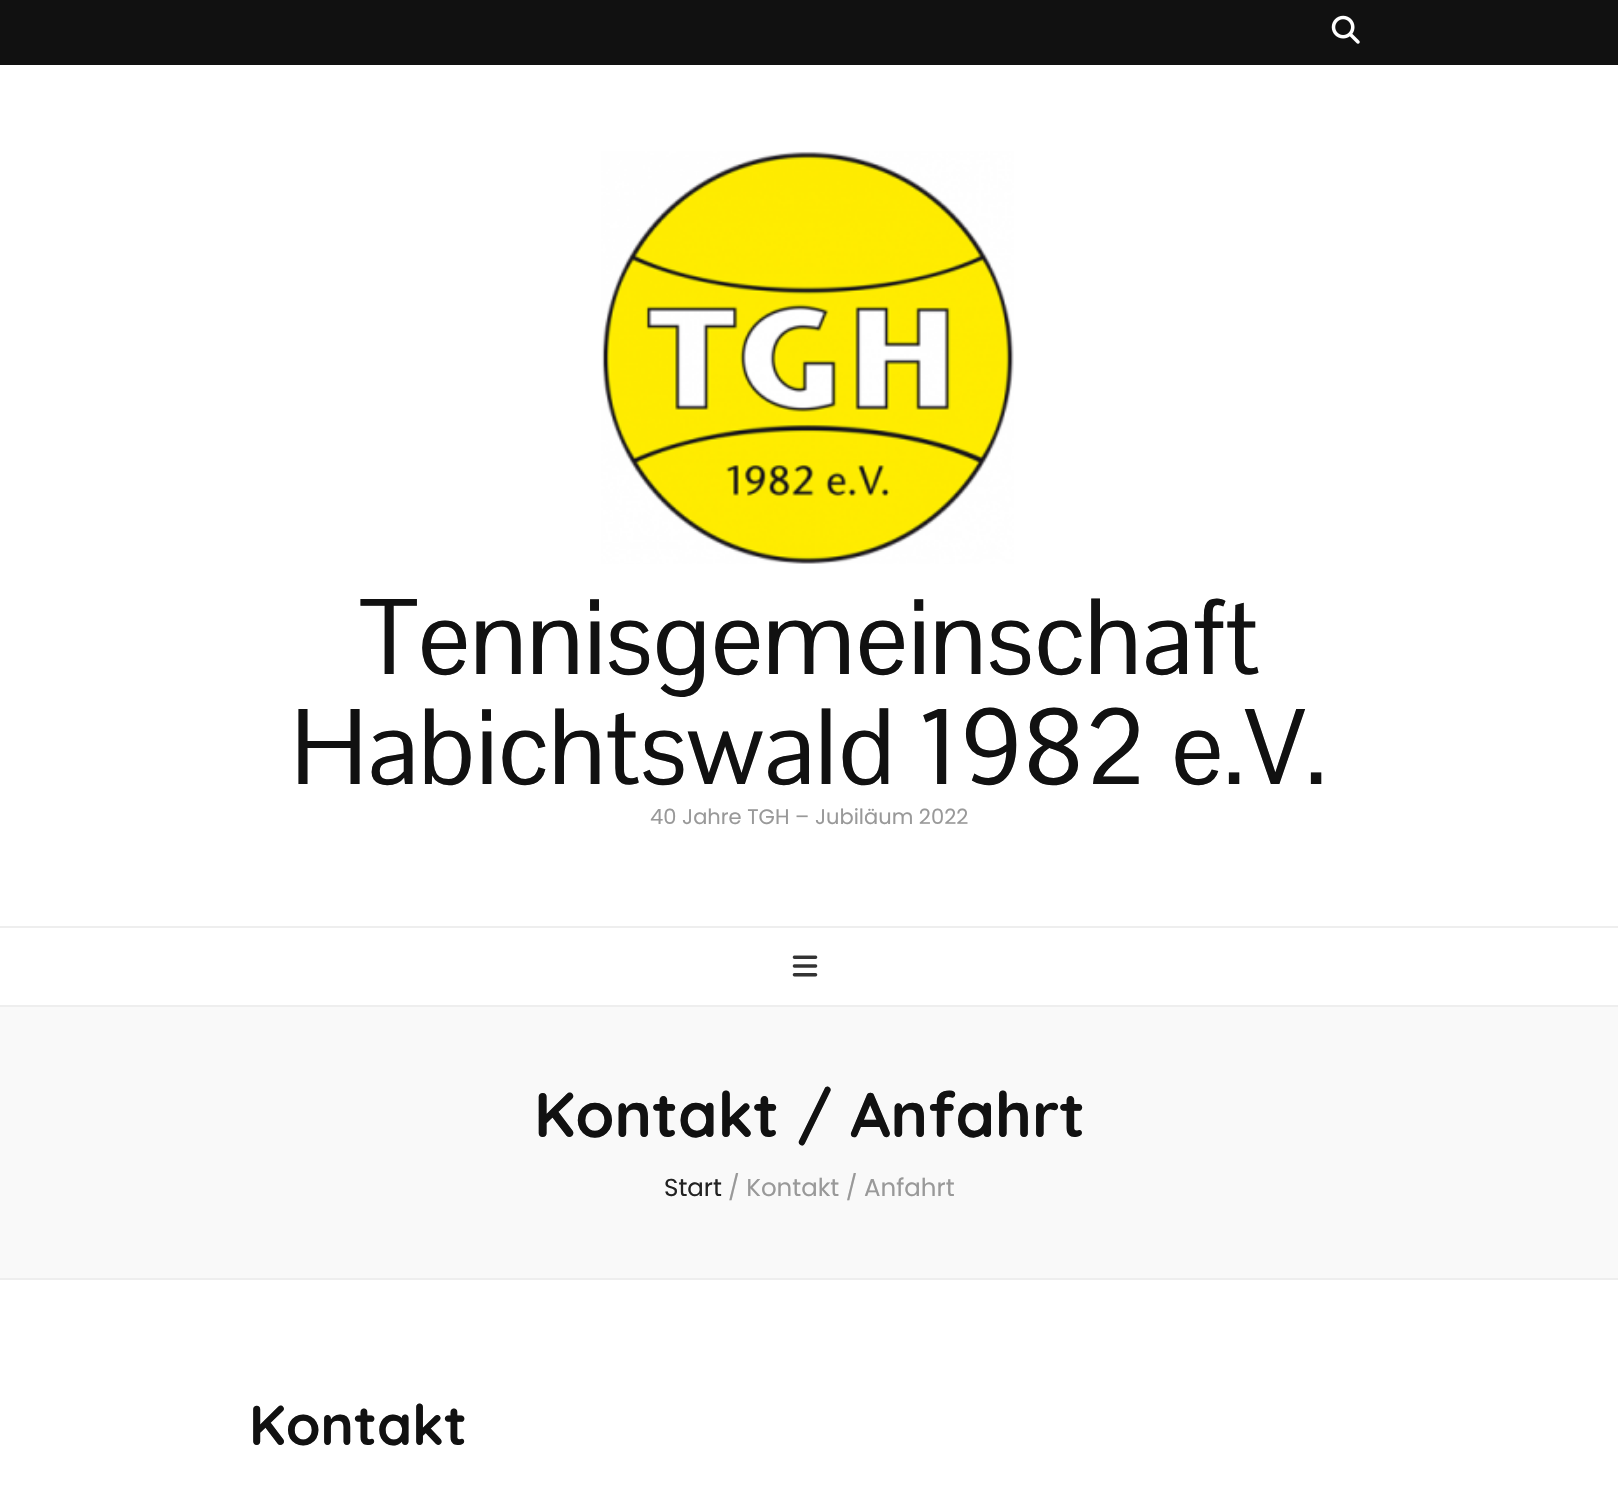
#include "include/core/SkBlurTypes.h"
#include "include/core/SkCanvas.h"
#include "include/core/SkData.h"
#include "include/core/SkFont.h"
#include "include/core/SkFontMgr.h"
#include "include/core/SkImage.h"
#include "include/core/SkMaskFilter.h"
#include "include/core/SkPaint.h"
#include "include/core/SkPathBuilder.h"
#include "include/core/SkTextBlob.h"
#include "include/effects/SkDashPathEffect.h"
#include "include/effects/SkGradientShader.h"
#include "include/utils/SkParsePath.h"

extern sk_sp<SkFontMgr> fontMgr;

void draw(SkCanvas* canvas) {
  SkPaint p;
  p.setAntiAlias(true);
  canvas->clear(SK_ColorWHITE);
  p.setColor(SkColorSetRGB(17, 17, 17));
  canvas->drawRect(SkRect::MakeLTRB(0, 0, 1618, 65), p);
  canvas->drawImageRect(SkImages::DeferredFromEncodedData(SkData::MakeFromFileName("images/1.png")), SkRect::MakeLTRB(1331, 15, 1360, 44), SkSamplingOptions());
  canvas->drawImageRect(SkImages::DeferredFromEncodedData(SkData::MakeFromFileName("images/2.png")), SkRect::MakeLTRB(601, 151, 1014, 564), SkSamplingOptions());
  p.setColor(SkColorSetRGB(238, 238, 238));
  canvas->drawRect(SkRect::MakeLTRB(0, 926, 1618, 928), p);
  canvas->drawRect(SkRect::MakeLTRB(0, 1005, 1618, 1007), p);
  canvas->drawImageRect(SkImages::DeferredFromEncodedData(SkData::MakeFromFileName("images/3.png")), SkRect::MakeLTRB(792, 955, 818, 977), SkSamplingOptions());
  p.setColor(SkColorSetRGB(249, 249, 249));
  canvas->drawRect(SkRect::MakeLTRB(0, 1007, 1618, 1278), p);
  p.setColor(SkColorSetRGB(238, 238, 238));
  canvas->drawRect(SkRect::MakeLTRB(0, 1278, 1618, 1280), p);
  SkFont font1(fontMgr->matchFamilyStyle("Pontano Sans", SkFontStyle::Normal()), 105);
  font1.setSubpixel(true);
  p.setColor(SkColorSetRGB(17, 17, 17));
  canvas->drawString("Tennisgemeinschaft", 360, 674, font1, p);
  canvas->drawString("Habichtswald 1982 e.V.", 291, 784, font1, p);
  SkFont font2(fontMgr->matchFamilyStyle("Poppins", SkFontStyle::Normal()), 21);
  font2.setSubpixel(true);
  p.setColor(SkColorSetRGB(153, 153, 153));
  canvas->drawString("40 Jahre TGH – Jubiläum 2022", 650, 824, font2, p);
  SkFont font3(fontMgr->matchFamilyStyle("Quicksand", SkFontStyle::Bold()), 63);
  font3.setSubpixel(true);
  p.setColor(SkColorSetRGB(17, 17, 17));
  canvas->drawString("Kontakt / Anfahrt", 534, 1137, font3, p);
  SkFont font4(fontMgr->matchFamilyStyle("Poppins", SkFontStyle::Normal()), 24.5f);
  font4.setSubpixel(true);
  p.setColor(SkColorSetRGB(34, 34, 34));
  canvas->drawString("Start", 664, 1196, font4, p);
  p.setColor(SkColorSetRGB(153, 153, 153));
  canvas->drawString("/ Kontakt / Anfahrt", 728, 1196, font4, p);
  SkFont font5(fontMgr->matchFamilyStyle("Quicksand", SkFontStyle::Bold()), 56);
  font5.setSubpixel(true);
  p.setColor(SkColorSetRGB(17, 17, 17));
  canvas->drawString("Kontakt", 249, 1445, font5, p);
}
